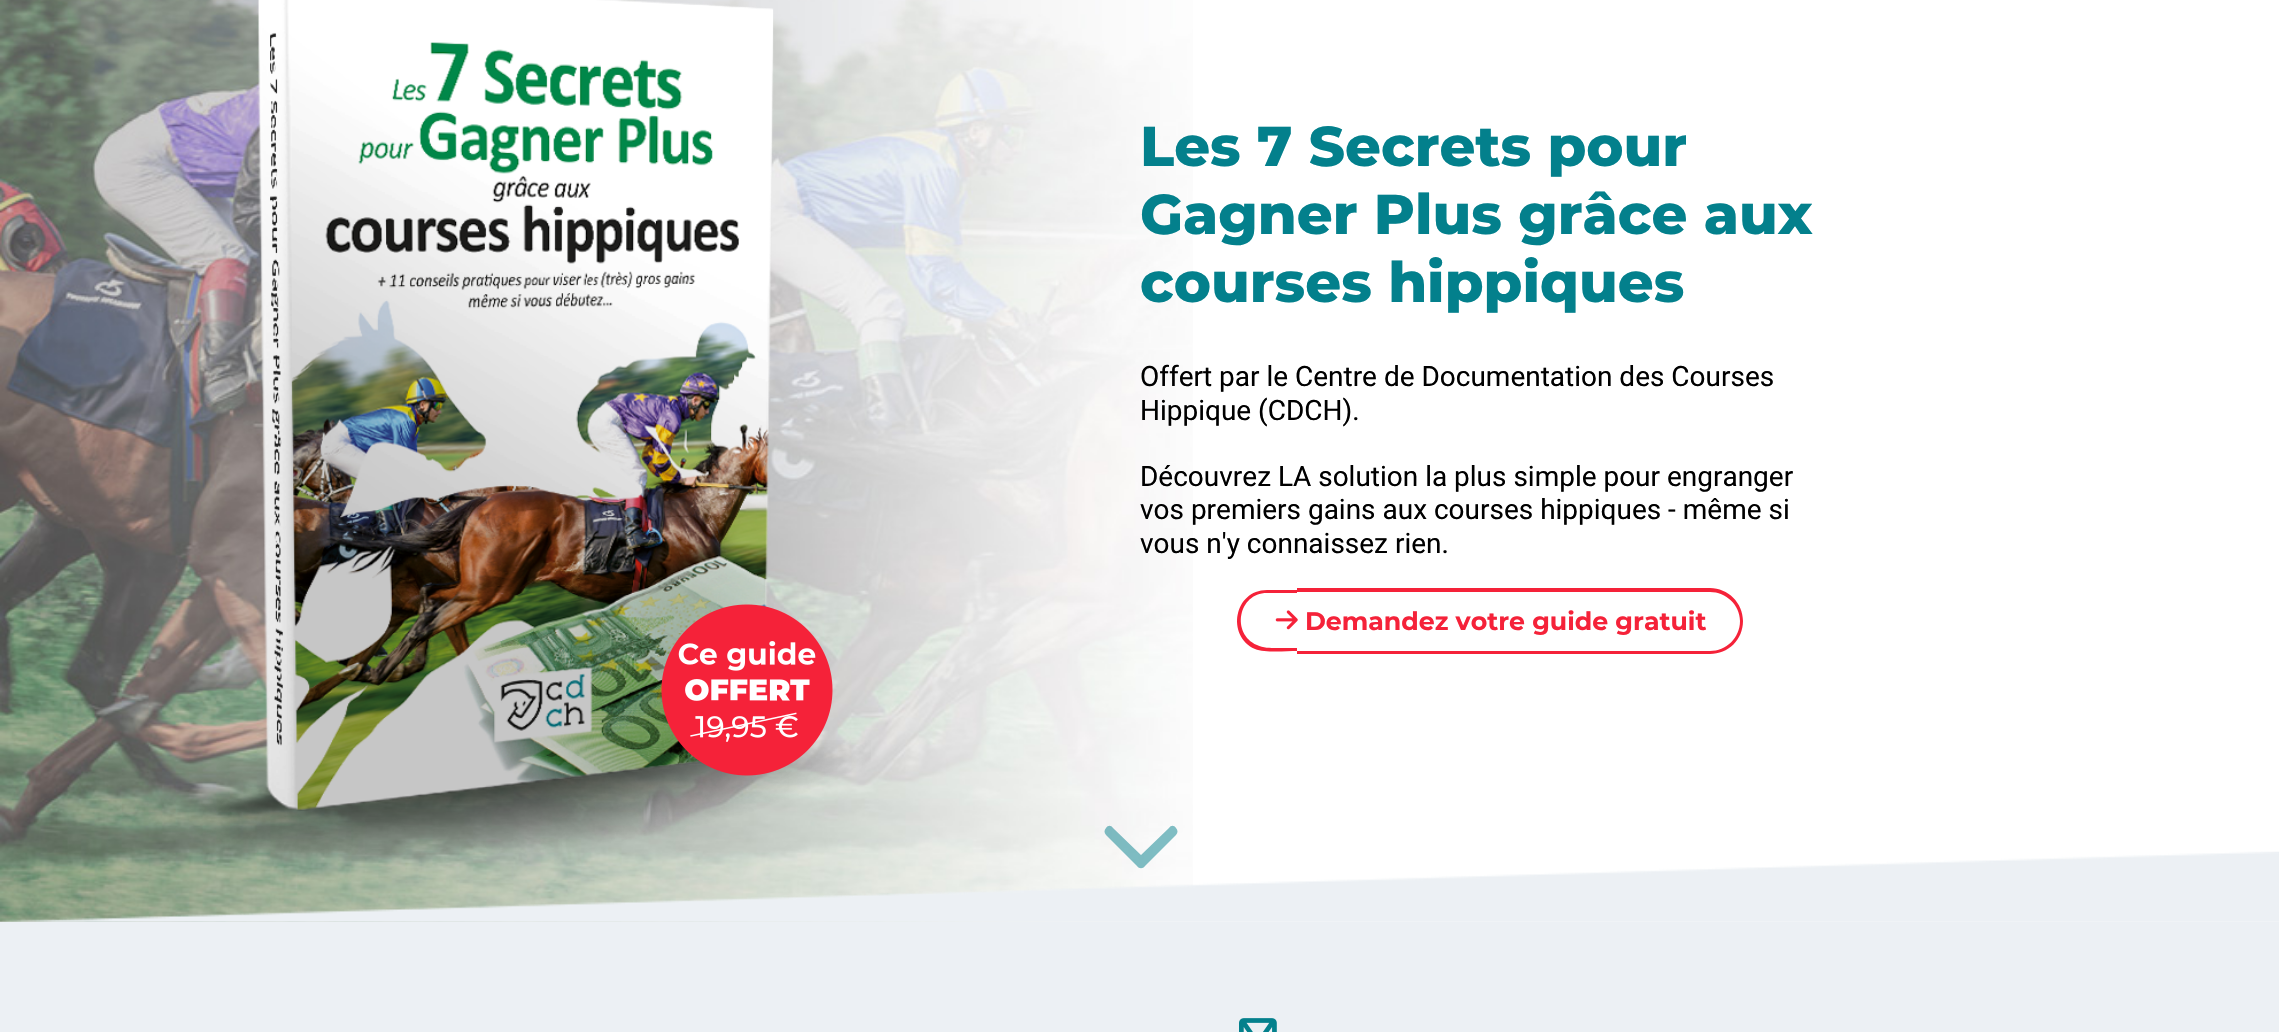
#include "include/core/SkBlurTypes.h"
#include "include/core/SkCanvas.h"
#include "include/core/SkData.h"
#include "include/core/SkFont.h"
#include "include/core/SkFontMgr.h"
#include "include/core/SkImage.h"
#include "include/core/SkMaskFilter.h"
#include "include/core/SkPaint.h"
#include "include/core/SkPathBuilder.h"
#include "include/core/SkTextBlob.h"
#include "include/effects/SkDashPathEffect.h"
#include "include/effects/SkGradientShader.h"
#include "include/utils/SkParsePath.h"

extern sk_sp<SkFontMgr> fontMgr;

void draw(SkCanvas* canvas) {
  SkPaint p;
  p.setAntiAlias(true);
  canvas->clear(SK_ColorWHITE);
  canvas->drawImageRect(SkImages::DeferredFromEncodedData(SkData::MakeFromFileName("images/1.png")), SkRect::MakeLTRB(0, 0, 1193, 922), SkSamplingOptions());
  canvas->drawImageRect(SkImages::DeferredFromEncodedData(SkData::MakeFromFileName("images/2.png")), SkRect::MakeLTRB(122, 0, 871, 855), SkSamplingOptions());
  canvas->drawImageRect(SkImages::DeferredFromEncodedData(SkData::MakeFromFileName("images/3.png")), SkRect::MakeLTRB(661, 604, 833, 776), SkSamplingOptions());
  p.setColor(SkColorSetRGB(245, 34, 57));
  canvas->drawPath(SkPathBuilder(SkPathFillType::kEvenOdd).moveTo(1267, 590).lineTo(1297, 590).lineTo(1297, 651).cubicTo(1286, 651, 1265, 653, 1255, 649).cubicTo(1226, 636, 1234, 590, 1267, 590).close().moveTo(1267, 593).lineTo(1297, 593).lineTo(1297, 648).lineTo(1277, 648).cubicTo(1270, 648, 1263, 648, 1257, 645).cubicTo(1231, 634, 1238, 593, 1267, 593).close().detach(), p);
  canvas->drawPath(SkPathBuilder(SkPathFillType::kEvenOdd).moveTo(1297, 588).lineTo(1710, 588).cubicTo(1728, 588, 1743, 603, 1743, 621).cubicTo(1743, 640, 1728, 654, 1710, 654).lineTo(1297, 654).close().moveTo(1297, 592).lineTo(1710, 592).cubicTo(1726, 592, 1740, 605, 1740, 621).cubicTo(1740, 638, 1726, 651, 1710, 651).lineTo(1297, 651).close().detach(), p);
  canvas->drawImageRect(SkImages::DeferredFromEncodedData(SkData::MakeFromFileName("images/4.png")), SkRect::MakeLTRB(1275, 610, 1298, 630), SkSamplingOptions());
  canvas->drawImageRect(SkImages::DeferredFromEncodedData(SkData::MakeFromFileName("images/5.png")), SkRect::MakeLTRB(2, 851, 2279, 922), SkSamplingOptions());
  p.setColor(SkColorSetARGB(128, 3, 128, 140));
  canvas->drawPath(SkPathBuilder().moveTo(1137, 866).cubicTo(1139, 869, 1143, 869, 1145, 866).lineTo(1176, 835).cubicTo(1178, 833, 1178, 830, 1176, 828).cubicTo(1174, 825, 1171, 825, 1169, 828).lineTo(1141, 855).lineTo(1113, 828).cubicTo(1111, 825, 1108, 825, 1106, 828).cubicTo(1104, 830, 1104, 833, 1106, 835).close().detach(), p);
  p.setColor(SkColorSetRGB(236, 240, 244));
  canvas->drawRect(SkRect::MakeLTRB(0, 922, 2279, 1032), p);
  canvas->drawImageRect(SkImages::DeferredFromEncodedData(SkData::MakeFromFileName("images/6.png")), SkRect::MakeLTRB(1239, 1018, 1277, 1032), SkSamplingOptions());
  SkFont font1(fontMgr->matchFamilyStyle("Montserrat", SkFontStyle(100, SkFontStyle::kNormal_Width, SkFontStyle::kUpright_Slant)), 56);
  font1.setSubpixel(true);
  p.setColor(SkColorSetRGB(3, 128, 140));
  canvas->drawString("Les 7 Secrets pour", 1140, 166, font1, p);
  canvas->drawString("Gagner Plus grâce aux", 1140, 234, font1, p);
  canvas->drawString("courses hippiques", 1140, 302, font1, p);
  SkFont font2(fontMgr->matchFamilyStyle("Roboto", SkFontStyle::Normal()), 28);
  font2.setSubpixel(true);
  p.setColor(SK_ColorBLACK);
  canvas->drawString("Offert par le Centre de Documentation des Courses", 1140, 386, font2, p);
  canvas->drawString("Hippique (CDCH).", 1140, 420, font2, p);
  canvas->drawString("Découvrez LA solution la plus simple pour engranger", 1140, 486, font2, p);
  canvas->drawString("vos premiers gains aux courses hippiques - même si", 1140, 519, font2, p);
  canvas->drawString("vous n'y connaissez rien.", 1140, 553, font2, p);
  SkFont font3(fontMgr->matchFamilyStyle("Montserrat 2", SkFontStyle(100, SkFontStyle::kNormal_Width, SkFontStyle::kUpright_Slant)), 25.25f);
  font3.setSubpixel(true);
  p.setColor(SkColorSetRGB(245, 34, 57));
  canvas->drawString("Demandez votre guide gratuit", 1305, 630, font3, p);
}
